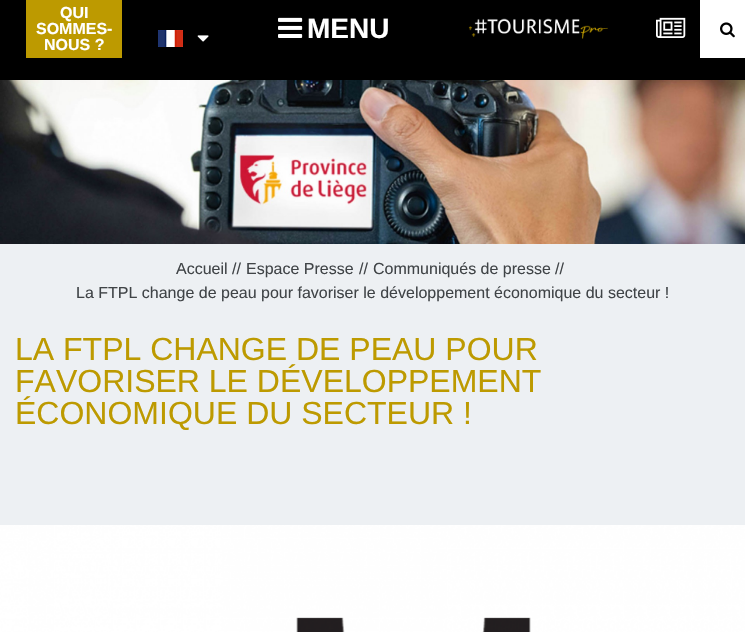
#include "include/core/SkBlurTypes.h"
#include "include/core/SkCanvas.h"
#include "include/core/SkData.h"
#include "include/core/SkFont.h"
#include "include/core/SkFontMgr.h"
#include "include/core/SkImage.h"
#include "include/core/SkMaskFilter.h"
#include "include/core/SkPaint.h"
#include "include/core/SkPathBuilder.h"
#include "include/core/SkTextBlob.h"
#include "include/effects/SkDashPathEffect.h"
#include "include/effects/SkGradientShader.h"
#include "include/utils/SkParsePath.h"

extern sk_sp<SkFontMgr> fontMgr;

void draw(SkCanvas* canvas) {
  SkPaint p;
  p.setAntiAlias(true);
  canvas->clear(SkColorSetRGB(237, 240, 243));
  p.setColor(SK_ColorBLACK);
  canvas->drawRect(SkRect::MakeLTRB(0, 0, 745, 80), p);
  p.setColor(SkColorSetRGB(189, 154, 0));
  canvas->drawRect(SkRect::MakeLTRB(26, 0, 122, 58), p);
  canvas->drawImageRect(SkImages::DeferredFromEncodedData(SkData::MakeFromFileName("images/1.png")), SkRect::MakeLTRB(158, 30, 183, 47), SkSamplingOptions());
  canvas->drawImageRect(SkImages::DeferredFromEncodedData(SkData::MakeFromFileName("images/2.png")), SkRect::MakeLTRB(197, 35, 209, 42), SkSamplingOptions());
  canvas->drawImageRect(SkImages::DeferredFromEncodedData(SkData::MakeFromFileName("images/3.png")), SkRect::MakeLTRB(278, 17, 303, 38), SkSamplingOptions());
  canvas->drawImageRect(SkImages::DeferredFromEncodedData(SkData::MakeFromFileName("images/4.png")), SkRect::MakeLTRB(468, 18, 608, 39), SkSamplingOptions());
  canvas->drawImageRect(SkImages::DeferredFromEncodedData(SkData::MakeFromFileName("images/5.png")), SkRect::MakeLTRB(656, 17, 686, 38), SkSamplingOptions());
  p.setColor(SK_ColorWHITE);
  canvas->drawRect(SkRect::MakeLTRB(700, 0, 745, 58), p);
  canvas->drawImageRect(SkImages::DeferredFromEncodedData(SkData::MakeFromFileName("images/6.png")), SkRect::MakeLTRB(720, 22, 735, 38), SkSamplingOptions());
  canvas->drawImageRect(SkImages::DeferredFromEncodedData(SkData::MakeFromFileName("images/7.png")), SkRect::MakeLTRB(0, 80, 745, 244), SkSamplingOptions());
  canvas->drawImageRect(SkImages::DeferredFromEncodedData(SkData::MakeFromFileName("images/8.png")), SkRect::MakeLTRB(0, 525, 745, 632), SkSamplingOptions());
  SkFont font1(fontMgr->matchFamilyStyle("Liberation Sans", SkFontStyle::Bold()), 16);
  font1.setSubpixel(true);
  canvas->drawString("QUI", 60, 18, font1, p);
  canvas->drawString("SOMMES-", 36, 34, font1, p);
  canvas->drawString("NOUS ?", 44, 50, font1, p);
  SkFont font2(fontMgr->matchFamilyStyle("Liberation Sans", SkFontStyle::Bold()), 28);
  font2.setSubpixel(true);
  canvas->drawString("MENU", 307, 38, font2, p);
  SkFont font3(fontMgr->matchFamilyStyle("Liberation Sans", SkFontStyle::Normal()), 16);
  font3.setSubpixel(true);
  p.setColor(SkColorSetRGB(64, 68, 71));
  canvas->drawString("Accueil", 176, 274, font3, p);
  canvas->drawString("//", 232, 274, font3, p);
  canvas->drawString("Espace Presse", 246, 274, font3, p);
  canvas->drawString("//", 359, 274, font3, p);
  canvas->drawString("Communiqués de presse", 373, 274, font3, p);
  canvas->drawString("//", 555, 274, font3, p);
  canvas->drawString("La FTPL change de peau pour favoriser le développement économique du secteur !", 76, 298, font3, p);
  SkFont font4(fontMgr->matchFamilyStyle("Liberation Sans", SkFontStyle::Normal()), 32);
  font4.setSubpixel(true);
  p.setColor(SkColorSetRGB(189, 154, 0));
  canvas->drawString("LA FTPL CHANGE DE PEAU POUR", 15, 360, font4, p);
  canvas->drawString("FAVORISER LE DÉVELOPPEMENT", 15, 392, font4, p);
  canvas->drawString("ÉCONOMIQUE DU SECTEUR !", 15, 424, font4, p);
}
